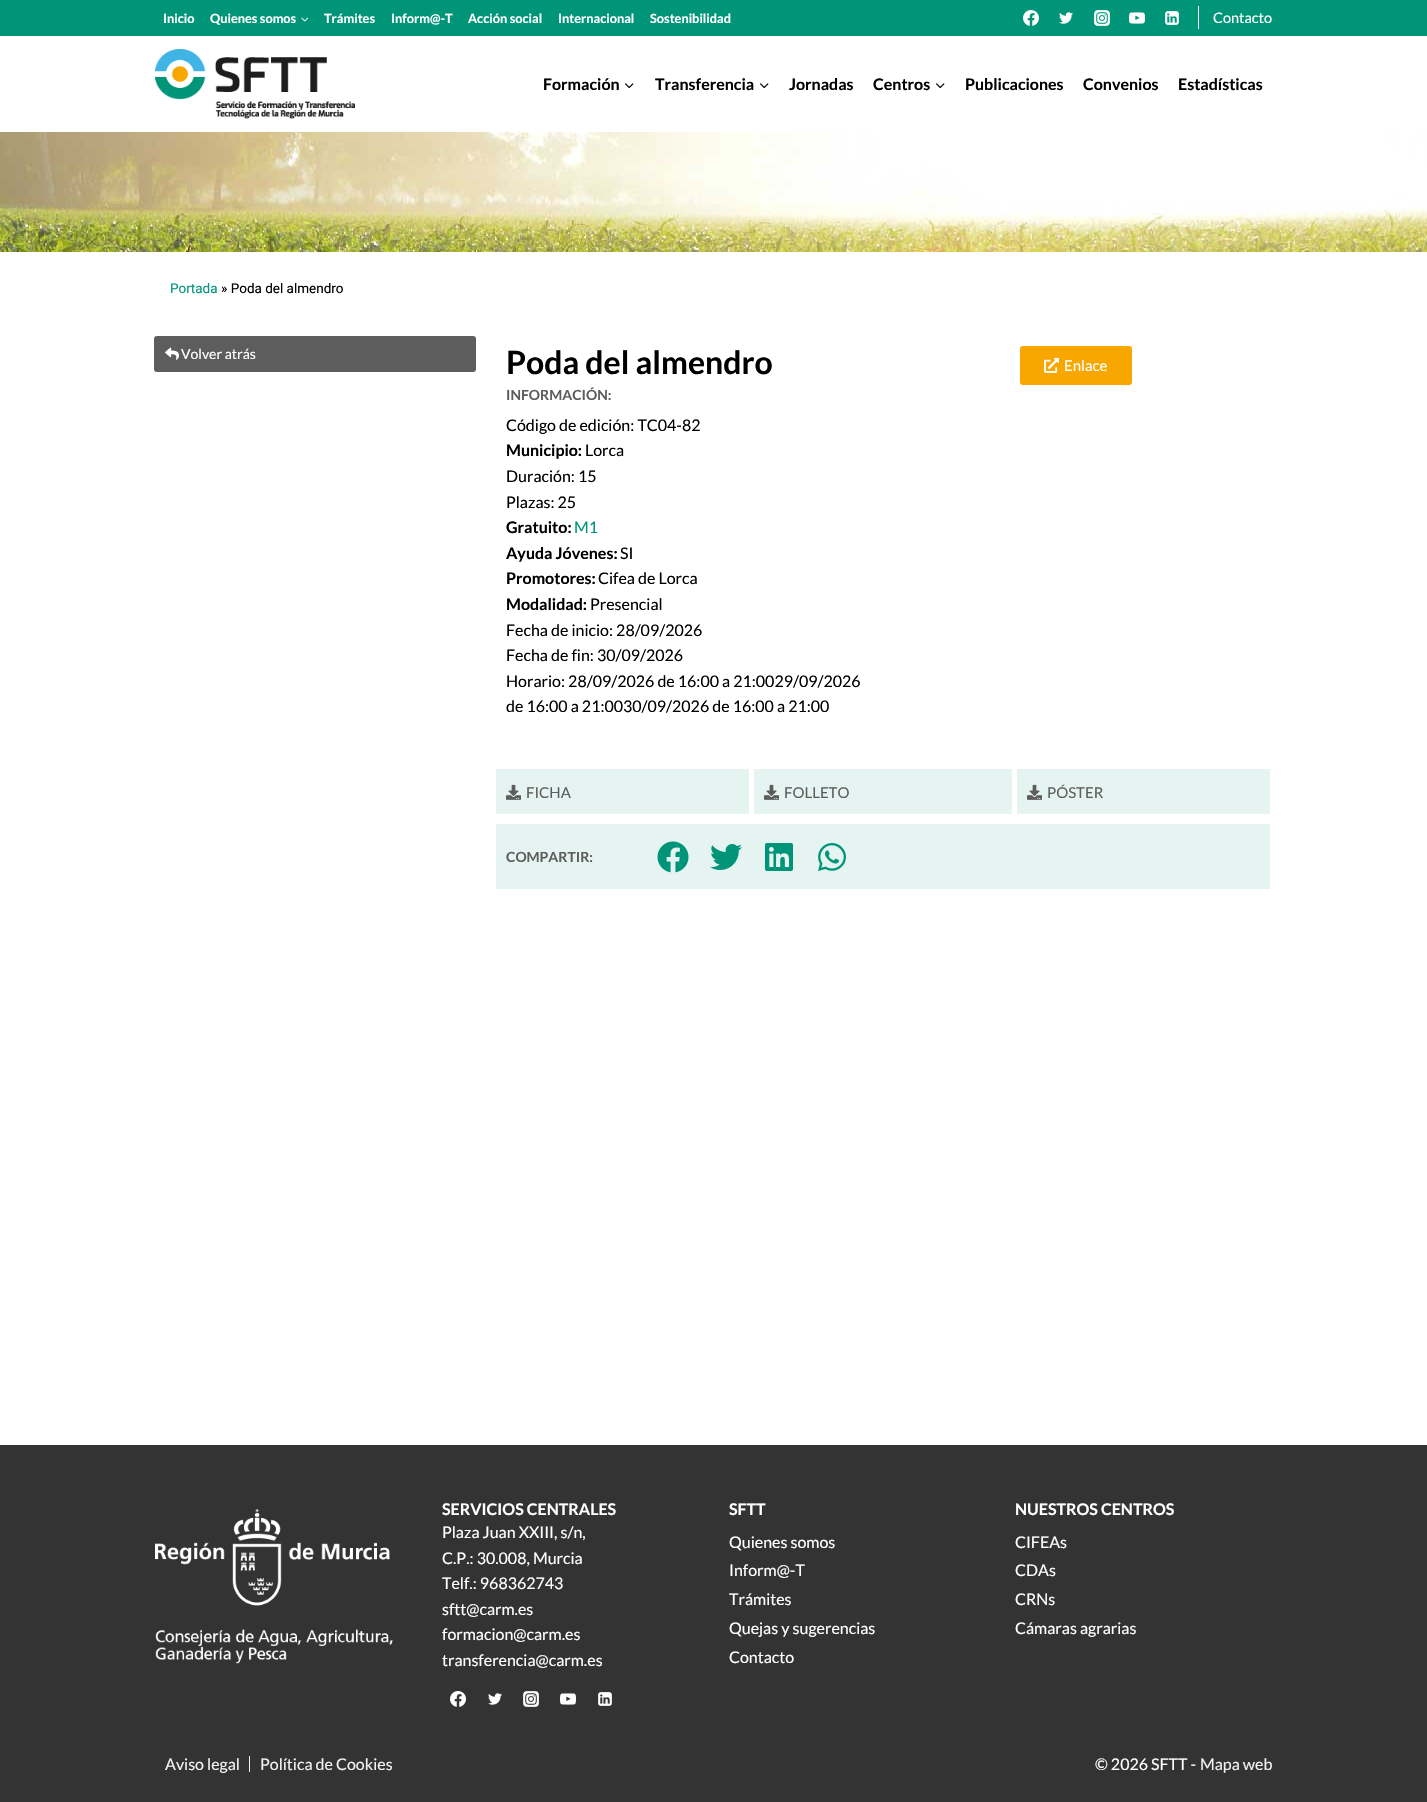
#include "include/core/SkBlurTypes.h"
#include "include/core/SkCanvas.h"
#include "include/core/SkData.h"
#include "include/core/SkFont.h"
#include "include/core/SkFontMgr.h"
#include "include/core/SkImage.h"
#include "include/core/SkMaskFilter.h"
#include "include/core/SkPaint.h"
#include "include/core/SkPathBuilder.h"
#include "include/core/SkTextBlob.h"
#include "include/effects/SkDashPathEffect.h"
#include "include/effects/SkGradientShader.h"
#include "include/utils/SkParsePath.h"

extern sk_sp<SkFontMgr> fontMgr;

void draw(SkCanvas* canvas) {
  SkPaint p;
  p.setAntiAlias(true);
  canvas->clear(SK_ColorWHITE);
  p.setColor(SkColorSetRGB(0, 149, 120));
  canvas->drawRect(SkRect::MakeLTRB(0, 0, 1427, 36), p);
  canvas->drawImageRect(SkImages::DeferredFromEncodedData(SkData::MakeFromFileName("images/1.png")), SkRect::MakeLTRB(301, 17, 309, 22), SkSamplingOptions());
  canvas->drawImageRect(SkImages::DeferredFromEncodedData(SkData::MakeFromFileName("images/2.png")), SkRect::MakeLTRB(1023, 10, 1039, 26), SkSamplingOptions());
  canvas->drawImageRect(SkImages::DeferredFromEncodedData(SkData::MakeFromFileName("images/3.png")), SkRect::MakeLTRB(1059, 12, 1073, 24), SkSamplingOptions());
  canvas->drawImageRect(SkImages::DeferredFromEncodedData(SkData::MakeFromFileName("images/4.png")), SkRect::MakeLTRB(1094, 10, 1110, 26), SkSamplingOptions());
  canvas->drawImageRect(SkImages::DeferredFromEncodedData(SkData::MakeFromFileName("images/5.png")), SkRect::MakeLTRB(1129, 12, 1145, 24), SkSamplingOptions());
  canvas->drawImageRect(SkImages::DeferredFromEncodedData(SkData::MakeFromFileName("images/6.png")), SkRect::MakeLTRB(1165, 11, 1179, 25), SkSamplingOptions());
  p.setColor(SK_ColorWHITE);
  canvas->drawRect(SkRect::MakeLTRB(1198, 6, 1199, 29), p);
  canvas->drawImageRect(SkImages::DeferredFromEncodedData(SkData::MakeFromFileName("images/7.png")), SkRect::MakeLTRB(155, 49, 355, 119), SkSamplingOptions());
  canvas->drawImageRect(SkImages::DeferredFromEncodedData(SkData::MakeFromFileName("images/8.png")), SkRect::MakeLTRB(625, 83, 634, 89), SkSamplingOptions());
  canvas->drawImageRect(SkImages::DeferredFromEncodedData(SkData::MakeFromFileName("images/8.png")), SkRect::MakeLTRB(760, 83, 769, 89), SkSamplingOptions());
  canvas->drawImageRect(SkImages::DeferredFromEncodedData(SkData::MakeFromFileName("images/8.png")), SkRect::MakeLTRB(936, 83, 945, 89), SkSamplingOptions());
  canvas->drawImageRect(SkImages::DeferredFromEncodedData(SkData::MakeFromFileName("images/9.png")), SkRect::MakeLTRB(0, 132, 1427, 252), SkSamplingOptions());
  p.setColor(SkColorSetRGB(93, 93, 93));
  canvas->drawRoundRect(SkRect::MakeLTRB(154, 336, 476, 372), 3, 3, p);
  canvas->drawImageRect(SkImages::DeferredFromEncodedData(SkData::MakeFromFileName("images/10.png")), SkRect::MakeLTRB(165, 347, 179, 360), SkSamplingOptions());
  p.setColor(SkColorSetRGB(247, 167, 0));
  canvas->drawRoundRect(SkRect::MakeLTRB(1020, 346, 1132, 385), 3, 3, p);
  canvas->drawImageRect(SkImages::DeferredFromEncodedData(SkData::MakeFromFileName("images/11.png")), SkRect::MakeLTRB(1044, 357, 1059, 373), SkSamplingOptions());
  p.setColor(SkColorSetRGB(229, 244, 241));
  canvas->drawRect(SkRect::MakeLTRB(496, 769, 749, 814), p);
  canvas->drawImageRect(SkImages::DeferredFromEncodedData(SkData::MakeFromFileName("images/12.png")), SkRect::MakeLTRB(506, 784, 521, 800), SkSamplingOptions());
  canvas->drawRect(SkRect::MakeLTRB(754, 769, 1012, 814), p);
  canvas->drawImageRect(SkImages::DeferredFromEncodedData(SkData::MakeFromFileName("images/12.png")), SkRect::MakeLTRB(764, 784, 779, 800), SkSamplingOptions());
  canvas->drawRect(SkRect::MakeLTRB(1017, 769, 1270, 814), p);
  canvas->drawImageRect(SkImages::DeferredFromEncodedData(SkData::MakeFromFileName("images/12.png")), SkRect::MakeLTRB(1027, 784, 1042, 800), SkSamplingOptions());
  canvas->drawRect(SkRect::MakeLTRB(496, 824, 1270, 889), p);
  canvas->drawImageRect(SkImages::DeferredFromEncodedData(SkData::MakeFromFileName("images/13.png")), SkRect::MakeLTRB(657, 841, 689, 873), SkSamplingOptions());
  canvas->drawImageRect(SkImages::DeferredFromEncodedData(SkData::MakeFromFileName("images/14.png")), SkRect::MakeLTRB(710, 844, 742, 870), SkSamplingOptions());
  canvas->drawImageRect(SkImages::DeferredFromEncodedData(SkData::MakeFromFileName("images/15.png")), SkRect::MakeLTRB(765, 843, 793, 871), SkSamplingOptions());
  canvas->drawImageRect(SkImages::DeferredFromEncodedData(SkData::MakeFromFileName("images/16.png")), SkRect::MakeLTRB(818, 843, 846, 871), SkSamplingOptions());
  p.setColor(SkColorSetRGB(51, 51, 51));
  canvas->drawRect(SkRect::MakeLTRB(0, 1445, 1427, 1802), p);
  canvas->drawImageRect(SkImages::DeferredFromEncodedData(SkData::MakeFromFileName("images/17.png")), SkRect::MakeLTRB(155, 1509, 393, 1664), SkSamplingOptions());
  canvas->drawImageRect(SkImages::DeferredFromEncodedData(SkData::MakeFromFileName("images/18.png")), SkRect::MakeLTRB(450, 1691, 466, 1707), SkSamplingOptions());
  canvas->drawImageRect(SkImages::DeferredFromEncodedData(SkData::MakeFromFileName("images/19.png")), SkRect::MakeLTRB(488, 1693, 502, 1705), SkSamplingOptions());
  canvas->drawImageRect(SkImages::DeferredFromEncodedData(SkData::MakeFromFileName("images/20.png")), SkRect::MakeLTRB(523, 1691, 539, 1707), SkSamplingOptions());
  canvas->drawImageRect(SkImages::DeferredFromEncodedData(SkData::MakeFromFileName("images/21.png")), SkRect::MakeLTRB(560, 1693, 576, 1705), SkSamplingOptions());
  canvas->drawImageRect(SkImages::DeferredFromEncodedData(SkData::MakeFromFileName("images/22.png")), SkRect::MakeLTRB(598, 1692, 612, 1706), SkSamplingOptions());
  p.setColor(SkColorSetRGB(240, 241, 240));
  canvas->drawRect(SkRect::MakeLTRB(249, 1756, 250, 1772), p);
  SkFont font1(fontMgr->matchFamilyStyle("Lato", SkFontStyle::Bold()), 12.75f);
  font1.setSubpixel(true);
  p.setColor(SK_ColorWHITE);
  canvas->drawString("Inicio", 163, 23, font1, p);
  canvas->drawString("Quienes somos", 210, 23, font1, p);
  canvas->drawString("Trámites", 324, 23, font1, p);
  canvas->drawString("Inform@-T", 391, 23, font1, p);
  canvas->drawString("Acción social", 468, 23, font1, p);
  canvas->drawString("Internacional", 558, 23, font1, p);
  canvas->drawString("Sostenibilidad", 650, 23, font1, p);
  SkFont font2(fontMgr->matchFamilyStyle("Lato", SkFontStyle::Normal()), 14.5f);
  font2.setSubpixel(true);
  canvas->drawString("Contacto", 1213, 23, font2, p);
  SkFont font3(fontMgr->matchFamilyStyle("Lato", SkFontStyle::Bold()), 16);
  font3.setSubpixel(true);
  p.setColor(SK_ColorBLACK);
  canvas->drawString("Formación", 543, 90, font3, p);
  canvas->drawString("Transferencia", 655, 90, font3, p);
  canvas->drawString("Jornadas", 789, 90, font3, p);
  canvas->drawString("Centros", 873, 90, font3, p);
  canvas->drawString("Publicaciones", 965, 90, font3, p);
  canvas->drawString("Convenios", 1083, 90, font3, p);
  canvas->drawString("Estadísticas", 1178, 90, font3, p);
  SkFont font4(fontMgr->matchFamilyStyle("Roboto", SkFontStyle::Normal()), 13.5f);
  font4.setSubpixel(true);
  p.setColor(SkColorSetRGB(0, 149, 120));
  canvas->drawString("Portada", 170, 293, font4, p);
  p.setColor(SK_ColorBLACK);
  canvas->drawString("» Poda del almendro", 221, 293, font4, p);
  SkFont font5(fontMgr->matchFamilyStyle("Lato", SkFontStyle::Normal()), 14);
  font5.setSubpixel(true);
  p.setColor(SK_ColorWHITE);
  canvas->drawString("Volver atrás", 181, 359, font5, p);
  SkFont font6(fontMgr->matchFamilyStyle("Lato", SkFontStyle::Bold()), 32);
  font6.setSubpixel(true);
  p.setColor(SK_ColorBLACK);
  canvas->drawString("Poda del almendro", 506, 374, font6, p);
  SkFont font7(fontMgr->matchFamilyStyle("Lato", SkFontStyle::Bold()), 14);
  font7.setSubpixel(true);
  p.setColor(SkColorSetRGB(93, 93, 93));
  canvas->drawString("INFORMACIÓN:", 506, 400, font7, p);
  SkFont font8(fontMgr->matchFamilyStyle("Lato", SkFontStyle::Normal()), 16);
  font8.setSubpixel(true);
  p.setColor(SK_ColorBLACK);
  canvas->drawString("Código de edición: TC04-82", 506, 431, font8, p);
  canvas->drawString("Municipio:", 506, 456, font3, p);
  canvas->drawString("Lorca", 585, 456, font8, p);
  canvas->drawString("Duración: 15", 506, 482, font8, p);
  canvas->drawString("Plazas: 25", 506, 508, font8, p);
  canvas->drawString("Gratuito:", 506, 533, font3, p);
  p.setColor(SkColorSetRGB(0, 149, 120));
  canvas->drawString("M1", 574, 533, font8, p);
  p.setColor(SK_ColorBLACK);
  canvas->drawString("Ayuda Jóvenes:", 506, 559, font3, p);
  canvas->drawString("SI", 620, 559, font8, p);
  canvas->drawString("Promotores:", 506, 584, font3, p);
  canvas->drawString("Cifea de Lorca", 598, 584, font8, p);
  canvas->drawString("Modalidad:", 506, 610, font3, p);
  canvas->drawString("Presencial", 590, 610, font8, p);
  canvas->drawString("Fecha de inicio: 28/09/2026", 506, 636, font8, p);
  canvas->drawString("Fecha de fin: 30/09/2026", 506, 661, font8, p);
  canvas->drawString("Horario: 28/09/2026 de 16:00 a 21:0029/09/2026", 506, 687, font8, p);
  canvas->drawString("de 16:00 a 21:0030/09/2026 de 16:00 a 21:00", 506, 712, font8, p);
  SkFont font9(fontMgr->matchFamilyStyle("Lato", SkFontStyle::Normal()), 15);
  font9.setSubpixel(true);
  p.setColor(SK_ColorWHITE);
  canvas->drawString("Enlace", 1064, 371, font9, p);
  p.setColor(SkColorSetRGB(93, 93, 93));
  canvas->drawString("FICHA", 526, 798, font9, p);
  canvas->drawString("FOLLETO", 784, 798, font9, p);
  canvas->drawString("PÓSTER", 1047, 798, font9, p);
  canvas->drawString("COMPARTIR:", 506, 862, font7, p);
  p.setColor(SK_ColorWHITE);
  canvas->drawString("SERVICIOS CENTRALES", 442, 1515, font3, p);
  canvas->drawString("Plaza Juan XXIII, s/n,", 442, 1538, font8, p);
  canvas->drawString("C.P.: 30.008, Murcia", 442, 1564, font8, p);
  canvas->drawString("Telf.: 968362743", 442, 1589, font8, p);
  canvas->drawString("sftt@carm.es", 442, 1615, font8, p);
  canvas->drawString("formacion@carm.es", 442, 1640, font8, p);
  canvas->drawString("transferencia@carm.es", 442, 1666, font8, p);
  canvas->drawString("SFTT", 729, 1515, font3, p);
  canvas->drawString("Quienes somos", 729, 1548, font8, p);
  canvas->drawString("Inform@-T", 729, 1576, font8, p);
  canvas->drawString("Trámites", 729, 1605, font8, p);
  canvas->drawString("Quejas y sugerencias", 729, 1634, font8, p);
  canvas->drawString("Contacto", 729, 1663, font8, p);
  canvas->drawString("NUESTROS CENTROS", 1015, 1515, font3, p);
  canvas->drawString("CIFEAs", 1015, 1548, font8, p);
  canvas->drawString("CDAs", 1015, 1576, font8, p);
  canvas->drawString("CRNs", 1015, 1605, font8, p);
  canvas->drawString("Cámaras agrarias", 1015, 1634, font8, p);
  p.setColor(SkColorSetRGB(240, 241, 240));
  canvas->drawString("Aviso legal", 165, 1770, font8, p);
  canvas->drawString("Política de Cookies", 260, 1770, font8, p);
  p.setColor(SK_ColorWHITE);
  canvas->drawString("© 2026 SFTT -", 1095, 1770, font8, p);
  p.setColor(SkColorSetRGB(240, 241, 240));
  canvas->drawString("Mapa web", 1200, 1770, font8, p);
}
